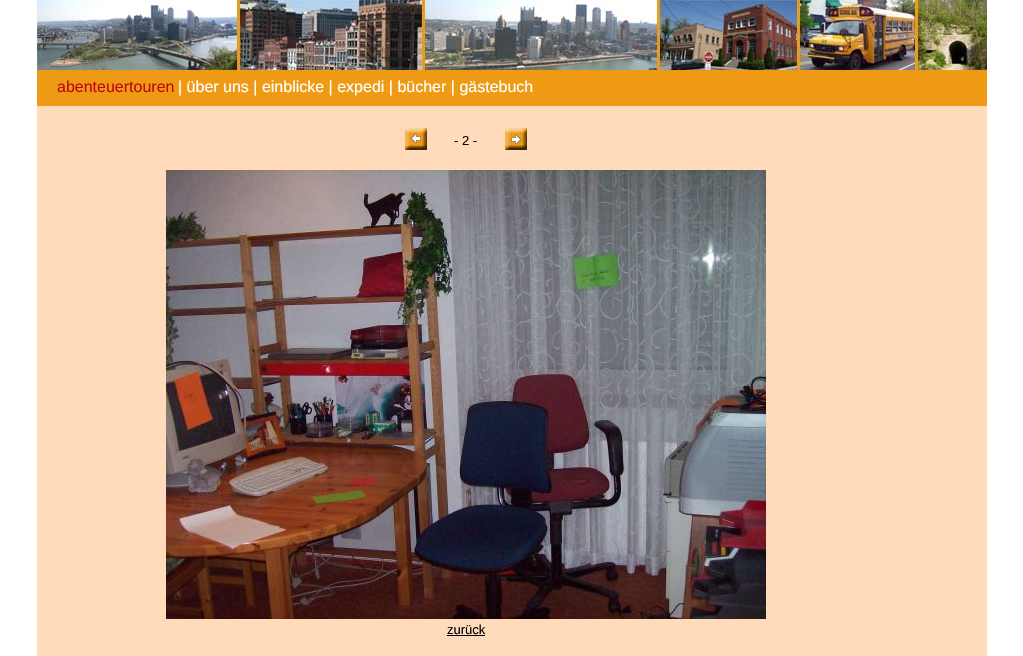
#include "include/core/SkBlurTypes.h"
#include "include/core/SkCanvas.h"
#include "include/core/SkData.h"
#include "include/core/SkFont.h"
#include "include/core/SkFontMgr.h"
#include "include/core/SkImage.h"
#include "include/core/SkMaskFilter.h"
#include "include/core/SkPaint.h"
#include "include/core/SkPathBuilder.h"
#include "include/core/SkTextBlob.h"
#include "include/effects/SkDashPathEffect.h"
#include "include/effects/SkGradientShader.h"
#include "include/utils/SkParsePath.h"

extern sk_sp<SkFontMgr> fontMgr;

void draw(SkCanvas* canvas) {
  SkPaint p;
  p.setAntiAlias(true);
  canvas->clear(SK_ColorWHITE);
  canvas->drawImageRect(SkImages::DeferredFromEncodedData(SkData::MakeFromFileName("images/1.png")), SkRect::MakeLTRB(37, 0, 987, 70), SkSamplingOptions());
  p.setColor(SkColorSetRGB(238, 154, 21));
  canvas->drawRect(SkRect::MakeLTRB(37, 70, 987, 106), p);
  p.setColor(SkColorSetRGB(255, 219, 187));
  canvas->drawRect(SkRect::MakeLTRB(37, 106, 987, 656), p);
  canvas->drawImageRect(SkImages::DeferredFromEncodedData(SkData::MakeFromFileName("images/2.png")), SkRect::MakeLTRB(405, 128, 427, 150), SkSamplingOptions());
  canvas->drawImageRect(SkImages::DeferredFromEncodedData(SkData::MakeFromFileName("images/3.png")), SkRect::MakeLTRB(505, 128, 527, 150), SkSamplingOptions());
  canvas->drawImageRect(SkImages::DeferredFromEncodedData(SkData::MakeFromFileName("images/4.png")), SkRect::MakeLTRB(166, 170, 766, 619), SkSamplingOptions());
  p.setColor(SK_ColorBLACK);
  canvas->drawRect(SkRect::MakeLTRB(447, 635, 485, 636), p);
  SkFont font1(fontMgr->matchFamilyStyle("Liberation Sans", SkFontStyle::Normal()), 16);
  font1.setSubpixel(true);
  p.setColor(SkColorSetRGB(192, 7, 15));
  canvas->drawString("abenteuertouren", 57, 92, font1, p);
  p.setColor(SK_ColorWHITE);
  canvas->drawString("| über uns | einblicke | expedi | bücher | gästebuch", 178, 92, font1, p);
  SkFont font2(fontMgr->matchFamilyStyle("Liberation Sans", SkFontStyle::Normal()), 13);
  font2.setSubpixel(true);
  p.setColor(SK_ColorBLACK);
  canvas->drawString("- 2 -", 454, 145, font2, p);
  canvas->drawString("zurück", 447, 634, font2, p);
}
